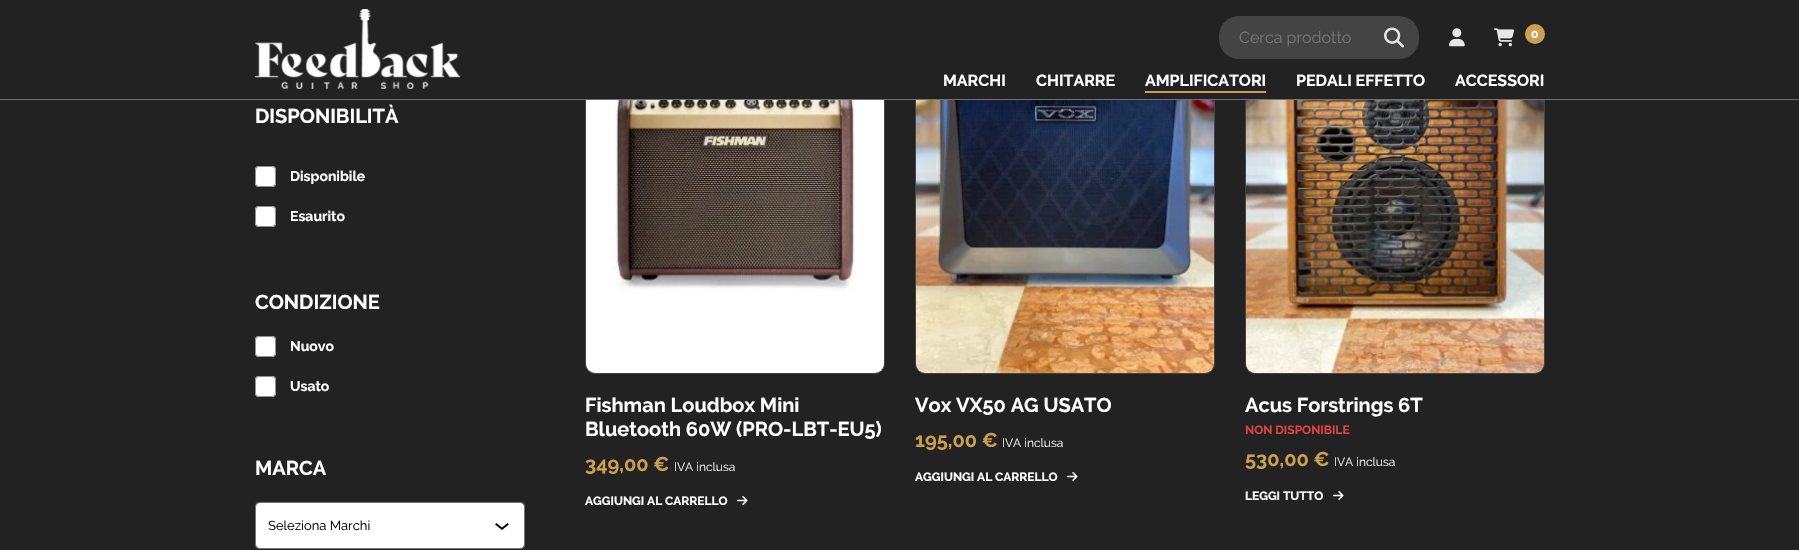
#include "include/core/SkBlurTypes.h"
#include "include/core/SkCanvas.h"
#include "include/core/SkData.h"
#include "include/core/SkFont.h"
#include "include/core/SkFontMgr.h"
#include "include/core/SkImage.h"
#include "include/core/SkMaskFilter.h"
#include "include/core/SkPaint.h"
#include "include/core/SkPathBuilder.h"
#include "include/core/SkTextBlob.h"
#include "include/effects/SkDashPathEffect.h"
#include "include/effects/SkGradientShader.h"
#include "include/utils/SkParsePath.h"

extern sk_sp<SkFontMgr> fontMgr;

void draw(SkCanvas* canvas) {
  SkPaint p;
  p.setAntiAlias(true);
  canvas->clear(SkColorSetRGB(34, 34, 34));
  p.setStyle(SkPaint::kStroke_Style);
  p.setStrokeWidth(1);
  p.setColor(SkColorSetRGB(68, 68, 68));
  canvas->drawRoundRect(SkRect::MakeLTRB(585.5f, -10.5f, 884.5f, 373.5f), 9.5f, 9.5f, p);
  canvas->drawRoundRect(SkRect::MakeLTRB(915.5f, -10.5f, 1214.5f, 373.5f), 9.5f, 9.5f, p);
  canvas->drawRoundRect(SkRect::MakeLTRB(1245.5f, -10.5f, 1544.5f, 373.5f), 9.5f, 9.5f, p);
  p.setStyle(SkPaint::kFill_Style);
  p.setColor(SkColorSetRGB(34, 34, 34));
  canvas->drawRect(SkRect::MakeLTRB(585, 0, 1545, 99), p);
  p.setColor(SkColorSetRGB(112, 112, 112));
  canvas->drawRect(SkRect::MakeLTRB(0, 99, 1799, 100), p);
  canvas->drawImageRect(SkImages::DeferredFromEncodedData(SkData::MakeFromFileName("images/1.png")), SkRect::MakeLTRB(254, 9, 461, 89), SkSamplingOptions());
  p.setColor(SkColorSetRGB(68, 68, 68));
  canvas->drawRoundRect(SkRect::MakeLTRB(1219, 16, 1419, 59), 20, 20, p);
  canvas->drawImageRect(SkImages::DeferredFromEncodedData(SkData::MakeFromFileName("images/2.png")), SkRect::MakeLTRB(1384, 27, 1404, 48), SkSamplingOptions());
  canvas->drawImageRect(SkImages::DeferredFromEncodedData(SkData::MakeFromFileName("images/3.png")), SkRect::MakeLTRB(1449, 28, 1465, 47), SkSamplingOptions());
  canvas->drawImageRect(SkImages::DeferredFromEncodedData(SkData::MakeFromFileName("images/4.png")), SkRect::MakeLTRB(1494, 28, 1515, 47), SkSamplingOptions());
  p.setColor(SkColorSetRGB(203, 160, 82));
  canvas->drawCircle(1535, 34, 10, p);
  canvas->drawRect(SkRect::MakeLTRB(1145, 91, 1266, 93), p);
  p.setColor(SK_ColorWHITE);
  canvas->drawRoundRect(SkRect::MakeLTRB(255, 166, 276, 187), 4, 4, p);
  p.setStyle(SkPaint::kStroke_Style);
  p.setColor(SkColorSetARGB(122, 25, 23, 17));
  canvas->drawRoundRect(SkRect::MakeLTRB(255.5f, 166.5f, 275.5f, 186.5f), 3.5f, 3.5f, p);
  p.setStyle(SkPaint::kFill_Style);
  p.setColor(SK_ColorWHITE);
  canvas->drawRoundRect(SkRect::MakeLTRB(255, 206, 276, 227), 4, 4, p);
  p.setStyle(SkPaint::kStroke_Style);
  p.setColor(SkColorSetARGB(122, 25, 23, 17));
  canvas->drawRoundRect(SkRect::MakeLTRB(255.5f, 206.5f, 275.5f, 226.5f), 3.5f, 3.5f, p);
  p.setStyle(SkPaint::kFill_Style);
  p.setColor(SK_ColorWHITE);
  canvas->drawRoundRect(SkRect::MakeLTRB(255, 336, 276, 357), 4, 4, p);
  p.setStyle(SkPaint::kStroke_Style);
  p.setColor(SkColorSetARGB(122, 25, 23, 17));
  canvas->drawRoundRect(SkRect::MakeLTRB(255.5f, 336.5f, 275.5f, 356.5f), 3.5f, 3.5f, p);
  p.setStyle(SkPaint::kFill_Style);
  p.setColor(SK_ColorWHITE);
  canvas->drawRoundRect(SkRect::MakeLTRB(255, 376, 276, 397), 4, 4, p);
  p.setStyle(SkPaint::kStroke_Style);
  p.setColor(SkColorSetARGB(122, 25, 23, 17));
  canvas->drawRoundRect(SkRect::MakeLTRB(255.5f, 376.5f, 275.5f, 396.5f), 3.5f, 3.5f, p);
  p.setColor(SkColorSetRGB(117, 117, 117));
  canvas->drawRoundRect(SkRect::MakeLTRB(255.5f, 502.5f, 524.5f, 548.5f), 3.5f, 3.5f, p);
  p.setStyle(SkPaint::kFill_Style);
  p.setColor(SK_ColorWHITE);
  canvas->drawRoundRect(SkRect::MakeLTRB(256, 503, 524, 548), 4, 4, p);
  canvas->drawImageRect(SkImages::DeferredFromEncodedData(SkData::MakeFromFileName("images/5.png")), SkRect::MakeLTRB(495, 523, 509, 530), SkSamplingOptions());
  canvas->drawImageRect(SkImages::DeferredFromEncodedData(SkData::MakeFromFileName("images/6.png")), SkRect::MakeLTRB(586, 100, 884, 373), SkSamplingOptions());
  canvas->drawImageRect(SkImages::DeferredFromEncodedData(SkData::MakeFromFileName("images/7.png")), SkRect::MakeLTRB(737, 496, 748, 505), SkSamplingOptions());
  canvas->drawImageRect(SkImages::DeferredFromEncodedData(SkData::MakeFromFileName("images/8.png")), SkRect::MakeLTRB(916, 100, 1214, 373), SkSamplingOptions());
  canvas->drawImageRect(SkImages::DeferredFromEncodedData(SkData::MakeFromFileName("images/7.png")), SkRect::MakeLTRB(1067, 472, 1078, 481), SkSamplingOptions());
  canvas->drawImageRect(SkImages::DeferredFromEncodedData(SkData::MakeFromFileName("images/9.png")), SkRect::MakeLTRB(1246, 100, 1544, 373), SkSamplingOptions());
  canvas->drawImageRect(SkImages::DeferredFromEncodedData(SkData::MakeFromFileName("images/7.png")), SkRect::MakeLTRB(1333, 491, 1344, 500), SkSamplingOptions());
  SkFont font1(fontMgr->matchFamilyStyle("Raleway", SkFontStyle::Normal()), 16);
  font1.setSubpixel(true);
  p.setColor(SkColorSetRGB(117, 117, 117));
  canvas->drawString("Cerca prodotto", 1239, 43, font1, p);
  SkFont font2(fontMgr->matchFamilyStyle("Raleway", SkFontStyle::Bold()), 12);
  font2.setSubpixel(true);
  p.setColor(SK_ColorWHITE);
  canvas->drawString("0", 1531, 38, font2, p);
  SkFont font3(fontMgr->matchFamilyStyle("Raleway", SkFontStyle::Bold()), 16);
  font3.setSubpixel(true);
  canvas->drawString("MARCHI", 943, 86, font3, p);
  canvas->drawString("CHITARRE", 1036, 86, font3, p);
  canvas->drawString("AMPLIFICATORI", 1145, 86, font3, p);
  canvas->drawString("PEDALI EFFETTO", 1296, 86, font3, p);
  canvas->drawString("ACCESSORI", 1455, 86, font3, p);
  SkFont font4(fontMgr->matchFamilyStyle("Raleway", SkFontStyle::Bold()), 20);
  font4.setSubpixel(true);
  canvas->drawString("DISPONIBILITÀ", 255, 123, font4, p);
  SkFont font5(fontMgr->matchFamilyStyle("Raleway", SkFontStyle::Bold()), 14);
  font5.setSubpixel(true);
  canvas->drawString("Disponibile", 290, 181, font5, p);
  canvas->drawString("Esaurito", 290, 221, font5, p);
  canvas->drawString("CONDIZIONE", 255, 309, font4, p);
  canvas->drawString("Nuovo", 290, 351, font5, p);
  canvas->drawString("Usato", 290, 391, font5, p);
  canvas->drawString("MARCA", 255, 475, font4, p);
  canvas->save();
  canvas->clipPath(SkPathBuilder().moveTo(283, 510).lineTo(479, 510).cubicTo(487.5f, 510, 494, 516.5f, 494, 525).cubicTo(494, 533.5f, 487.5f, 540, 479, 540).lineTo(283, 540).cubicTo(274.5f, 540, 268, 533.5f, 268, 525).cubicTo(268, 516.5f, 274.5f, 510, 283, 510).close().detach(), true);
  SkFont font6(fontMgr->matchFamilyStyle("Raleway", SkFontStyle::Normal()), 13);
  font6.setSubpixel(true);
  p.setColor(SK_ColorBLACK);
  canvas->drawString("Seleziona Marchi", 268, 530, font6, p);
  canvas->restore();
  p.setColor(SK_ColorWHITE);
  canvas->drawString("Fishman Loudbox Mini", 585, 412, font4, p);
  canvas->drawString("Bluetooth 60W (PRO-LBT-EU5)", 585, 436, font4, p);
  p.setColor(SkColorSetRGB(203, 160, 82));
  canvas->drawString("349,00 €", 585, 471, font4, p);
  SkFont font7(fontMgr->matchFamilyStyle("Raleway", SkFontStyle::Normal()), 12);
  font7.setSubpixel(true);
  p.setColor(SkColorSetRGB(230, 230, 230));
  canvas->drawString("IVA inclusa", 674, 471, font7, p);
  p.setColor(SK_ColorWHITE);
  canvas->drawString("AGGIUNGI AL CARRELLO", 585, 505, font2, p);
  canvas->drawString("Vox VX50 AG USATO", 915, 412, font4, p);
  p.setColor(SkColorSetRGB(203, 160, 82));
  canvas->drawString("195,00 €", 915, 447, font4, p);
  p.setColor(SkColorSetRGB(230, 230, 230));
  canvas->drawString("IVA inclusa", 1002, 447, font7, p);
  p.setColor(SK_ColorWHITE);
  canvas->drawString("AGGIUNGI AL CARRELLO", 915, 481, font2, p);
  canvas->drawString("Acus Forstrings 6T", 1245, 412, font4, p);
  p.setColor(SkColorSetRGB(224, 66, 66));
  canvas->drawString("NON DISPONIBILE", 1245, 434, font2, p);
  p.setColor(SkColorSetRGB(203, 160, 82));
  canvas->drawString("530,00 €", 1245, 466, font4, p);
  p.setColor(SkColorSetRGB(230, 230, 230));
  canvas->drawString("IVA inclusa", 1334, 466, font7, p);
  p.setColor(SK_ColorWHITE);
  canvas->drawString("LEGGI TUTTO", 1245, 500, font2, p);
}
